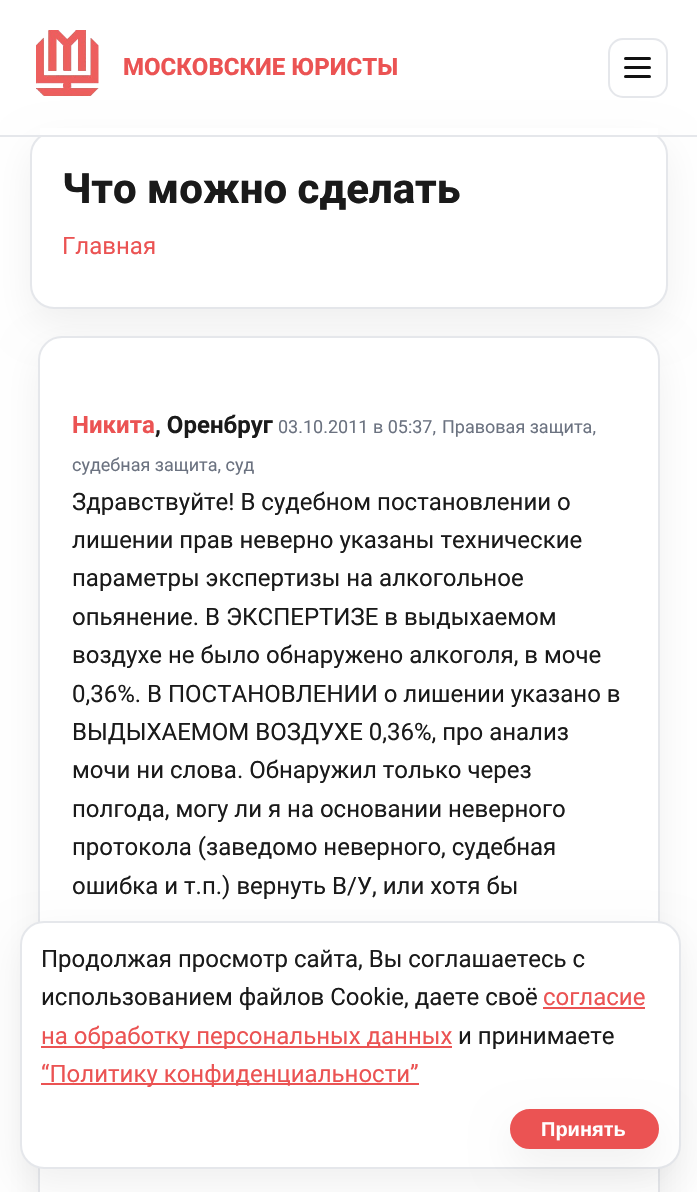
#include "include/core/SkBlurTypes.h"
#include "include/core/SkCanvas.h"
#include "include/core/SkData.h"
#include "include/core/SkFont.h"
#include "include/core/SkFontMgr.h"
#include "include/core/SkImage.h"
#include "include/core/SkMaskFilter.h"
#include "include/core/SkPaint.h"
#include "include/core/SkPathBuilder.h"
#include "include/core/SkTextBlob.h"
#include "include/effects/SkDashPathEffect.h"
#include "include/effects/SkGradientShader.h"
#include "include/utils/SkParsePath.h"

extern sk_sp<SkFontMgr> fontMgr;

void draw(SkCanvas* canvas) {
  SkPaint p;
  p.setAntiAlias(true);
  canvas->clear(SK_ColorWHITE);
  p.setColor(SkColorSetARGB(15, 0, 0, 0));
  p.setMaskFilter(SkMaskFilter::MakeBlur(kNormal_SkBlurStyle, 19));
  canvas->drawRoundRect(SkRect::MakeLTRB(30, 146, 668, 324), 24, 24, p);
  p.setMaskFilter(nullptr);
  p.setColor(SK_ColorWHITE);
  canvas->drawRoundRect(SkRect::MakeLTRB(31, 132, 667, 308), 23, 23, p);
  p.setStyle(SkPaint::kStroke_Style);
  p.setStrokeWidth(2);
  p.setColor(SkColorSetRGB(229, 231, 235));
  canvas->drawRoundRect(SkRect::MakeLTRB(31, 132, 667, 308), 23, 23, p);
  p.setStyle(SkPaint::kFill_Style);
  p.setColor(SK_ColorWHITE);
  canvas->drawRect(SkRect::MakeLTRB(40, 128, 658, 135), p);
  p.setColor(SkColorSetRGB(229, 231, 235));
  canvas->drawRect(SkRect::MakeLTRB(0, 135, 697, 137), p);
  canvas->drawImageRect(SkImages::DeferredFromEncodedData(SkData::MakeFromFileName("images/1.png")), SkRect::MakeLTRB(36, 30, 99, 96), SkSamplingOptions());
  p.setStyle(SkPaint::kStroke_Style);
  canvas->drawRoundRect(SkRect::MakeLTRB(609, 39, 667, 97), 14, 14, p);
  p.setStyle(SkPaint::kFill_Style);
  p.setColor(SkColorSetRGB(17, 17, 17));
  canvas->drawRoundRect(SkRect::MakeLTRB(624, 66, 651, 69), 1.5f, 1.5f, p);
  canvas->drawRoundRect(SkRect::MakeLTRB(624, 57, 651, 60), 1.5f, 1.5f, p);
  canvas->drawRoundRect(SkRect::MakeLTRB(624, 75, 651, 78), 1.5f, 1.5f, p);
  p.setColor(SkColorSetARGB(15, 0, 0, 0));
  p.setMaskFilter(SkMaskFilter::MakeBlur(kNormal_SkBlurStyle, 19));
  canvas->drawRoundRect(SkRect::MakeLTRB(38, 351, 660, 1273), 24, 24, p);
  p.setMaskFilter(nullptr);
  p.setColor(SK_ColorWHITE);
  canvas->drawRoundRect(SkRect::MakeLTRB(39, 337, 659, 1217), 23, 23, p);
  p.setStyle(SkPaint::kStroke_Style);
  p.setColor(SkColorSetRGB(229, 231, 235));
  canvas->drawRoundRect(SkRect::MakeLTRB(39, 337, 659, 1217), 23, 23, p);
  p.setStyle(SkPaint::kFill_Style);
  p.setColor(SkColorSetARGB(15, 0, 0, 0));
  p.setMaskFilter(SkMaskFilter::MakeBlur(kNormal_SkBlurStyle, 19));
  canvas->drawRoundRect(SkRect::MakeLTRB(20, 936, 681, 1184), 24, 24, p);
  p.setMaskFilter(nullptr);
  p.setColor(SK_ColorWHITE);
  canvas->drawRoundRect(SkRect::MakeLTRB(21, 922, 680, 1168), 23, 23, p);
  p.setStyle(SkPaint::kStroke_Style);
  p.setColor(SkColorSetRGB(229, 231, 235));
  canvas->drawRoundRect(SkRect::MakeLTRB(21, 922, 680, 1168), 23, 23, p);
  p.setStyle(SkPaint::kFill_Style);
  p.setColor(SkColorSetRGB(235, 83, 83));
  canvas->drawRect(SkRect::MakeLTRB(543, 1007, 645, 1009), p);
  canvas->drawRect(SkRect::MakeLTRB(41, 1046, 452, 1048), p);
  canvas->drawRect(SkRect::MakeLTRB(41, 1083, 419, 1085), p);
  p.setColor(SkColorSetARGB(15, 0, 0, 0));
  p.setMaskFilter(SkMaskFilter::MakeBlur(kNormal_SkBlurStyle, 19));
  canvas->drawRoundRect(SkRect::MakeLTRB(510, 1124, 659, 1164), 20, 20, p);
  p.setMaskFilter(nullptr);
  p.setColor(SkColorSetRGB(235, 83, 83));
  canvas->drawRoundRect(SkRect::MakeLTRB(511, 1110, 658, 1148), 19, 19, p);
  p.setStyle(SkPaint::kStroke_Style);
  canvas->drawRoundRect(SkRect::MakeLTRB(511, 1110, 658, 1148), 19, 19, p);
  SkFont font1(fontMgr->matchFamilyStyle("Roboto", SkFontStyle(800, SkFontStyle::kNormal_Width, SkFontStyle::kUpright_Slant)), 24);
  font1.setSubpixel(true);
  p.setStyle(SkPaint::kFill_Style);
  canvas->drawString("МОСКОВСКИЕ ЮРИСТЫ", 123, 75, font1, p);
  SkFont font2(fontMgr->matchFamilyStyle("Roboto", SkFontStyle(800, SkFontStyle::kNormal_Width, SkFontStyle::kUpright_Slant)), 42);
  font2.setSubpixel(true);
  p.setColor(SkColorSetRGB(26, 26, 26));
  canvas->drawString("Что можно сделать", 62, 203, font2, p);
  SkFont font3(fontMgr->matchFamilyStyle("Roboto", SkFontStyle::Normal()), 24);
  font3.setSubpixel(true);
  p.setColor(SkColorSetRGB(235, 83, 83));
  canvas->drawString("Главная", 62, 254, font3, p);
  SkFont font4(fontMgr->matchFamilyStyle("Roboto", SkFontStyle::Bold()), 24);
  font4.setSubpixel(true);
  canvas->drawString("Никита", 72, 433, font4, p);
  p.setColor(SkColorSetRGB(26, 26, 26));
  canvas->drawString(", Оренбруг", 155, 433, font4, p);
  SkFont font5(fontMgr->matchFamilyStyle("Roboto", SkFontStyle::Normal()), 18);
  font5.setSubpixel(true);
  p.setColor(SkColorSetRGB(107, 114, 128));
  canvas->drawString("03.10.2011 в 05:37,", 278, 433, font5, p);
  canvas->drawString("Правовая защита,", 442, 433, font5, p);
  canvas->drawString("судебная защита, суд", 72, 471, font5, p);
  p.setColor(SkColorSetRGB(26, 26, 26));
  canvas->drawString("Здравствуйте! В судебном постановлении о", 72, 510, font3, p);
  canvas->drawString("лишении прав неверно указаны технические", 72, 548, font3, p);
  canvas->drawString("параметры экспертизы на алкогольное", 72, 586, font3, p);
  canvas->drawString("опьянение. В ЭКСПЕРТИЗЕ в выдыхаемом", 72, 625, font3, p);
  canvas->drawString("воздухе не было обнаружено алкоголя, в моче", 72, 663, font3, p);
  canvas->drawString("0,36%. В ПОСТАНОВЛЕНИИ о лишении указано в", 72, 702, font3, p);
  canvas->drawString("ВЫДЫХАЕМОМ ВОЗДУХЕ 0,36%, про анализ", 72, 740, font3, p);
  canvas->drawString("мочи ни слова. Обнаружил только через", 72, 778, font3, p);
  canvas->drawString("полгода, могу ли я на основании неверного", 72, 817, font3, p);
  canvas->drawString("протокола (заведомо неверного, судебная", 72, 855, font3, p);
  canvas->drawString("ошибка и т.п.) вернуть В/У, или хотя бы", 72, 894, font3, p);
  canvas->drawString("Продолжая просмотр сайта, Вы соглашаетесь с", 41, 967, font3, p);
  canvas->drawString("использованием файлов Cookie, даете своё", 41, 1005, font3, p);
  p.setColor(SkColorSetRGB(235, 83, 83));
  canvas->drawString("согласие", 543, 1005, font3, p);
  canvas->drawString("на обработку персональных данных", 41, 1044, font3, p);
  p.setColor(SkColorSetRGB(26, 26, 26));
  canvas->drawString("и принимаете", 458, 1044, font3, p);
  p.setColor(SkColorSetRGB(235, 83, 83));
  canvas->drawString("“Политику конфиденциальности”", 41, 1082, font3, p);
  SkFont font6(fontMgr->matchFamilyStyle("Liberation Sans", SkFontStyle::Bold()), 20);
  font6.setSubpixel(true);
  p.setColor(SK_ColorWHITE);
  canvas->drawString("Принять", 541, 1136, font6, p);
}
